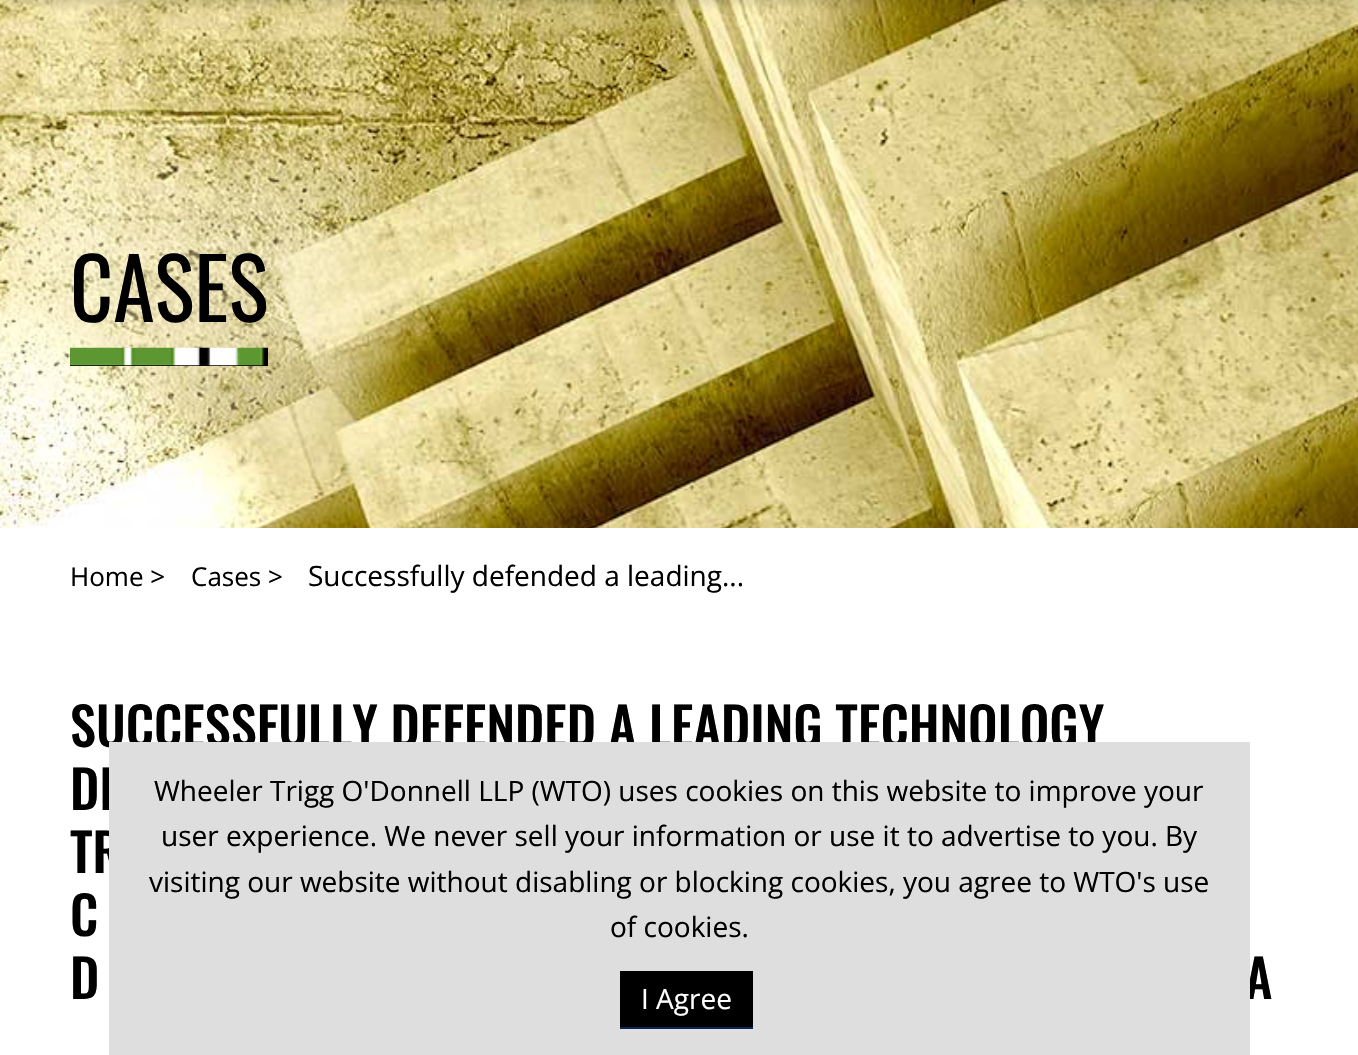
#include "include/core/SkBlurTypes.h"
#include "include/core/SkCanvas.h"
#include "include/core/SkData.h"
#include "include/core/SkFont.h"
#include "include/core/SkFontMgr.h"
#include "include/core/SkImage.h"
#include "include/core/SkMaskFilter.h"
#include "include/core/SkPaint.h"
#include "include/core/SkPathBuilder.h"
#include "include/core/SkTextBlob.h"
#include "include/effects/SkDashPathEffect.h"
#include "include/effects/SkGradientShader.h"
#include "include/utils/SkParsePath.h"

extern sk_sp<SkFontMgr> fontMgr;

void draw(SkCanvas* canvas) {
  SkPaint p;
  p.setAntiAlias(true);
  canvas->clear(SK_ColorWHITE);
  canvas->drawImageRect(SkImages::DeferredFromEncodedData(SkData::MakeFromFileName("images/1.png")), SkRect::MakeLTRB(0, 0, 1358, 528), SkSamplingOptions());
  p.setColor(SkColorSetARGB(26, 0, 0, 0));
  p.setMaskFilter(SkMaskFilter::MakeBlur(kNormal_SkBlurStyle, 4.5f));
  canvas->drawRect(SkRect::MakeLTRB(0, -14, 1358, 5), p);
  p.setMaskFilter(nullptr);
  canvas->save();
  canvas->clipPath(SkPathBuilder(SkPathFillType::kEvenOdd).moveTo(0, 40).lineTo(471, 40).lineTo(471, 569).lineTo(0, 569).close().moveTo(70, 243).lineTo(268, 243).lineTo(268, 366).lineTo(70, 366).close().detach(), true);
  p.setColor(SkColorSetARGB(77, 255, 255, 255));
  p.setMaskFilter(SkMaskFilter::MakeBlur(kNormal_SkBlurStyle, 44));
  canvas->drawRect(SkRect::MakeLTRB(0, 173, 338, 436), p);
  p.setMaskFilter(nullptr);
  canvas->restore();
  canvas->drawRect(SkRect::MakeLTRB(70, 243, 268, 348), p);
  p.setColor(SK_ColorBLACK);
  canvas->drawRect(SkRect::MakeLTRB(70, 348, 268, 366), p);
  canvas->drawImageRect(SkImages::DeferredFromEncodedData(SkData::MakeFromFileName("images/2.png")), SkRect::MakeLTRB(70, 347, 268, 366), SkSamplingOptions());
  SkFont font1(fontMgr->matchFamilyStyle("Oswald", SkFontStyle::Normal()), 84);
  font1.setSubpixel(true);
  canvas->drawString("CASES", 70, 322, font1, p);
  SkFont font2(fontMgr->matchFamilyStyle("Open Sans", SkFontStyle::Normal()), 26);
  font2.setSubpixel(true);
  canvas->drawString("Home >", 70, 586, font2, p);
  canvas->drawString("Cases >", 191, 586, font2, p);
  SkFont font3(fontMgr->matchFamilyStyle("Open Sans", SkFontStyle::Normal()), 28);
  font3.setSubpixel(true);
  canvas->drawString("Successfully defended a leading...", 308, 586, font3, p);
  SkFont font4(fontMgr->matchFamilyStyle("Oswald", SkFontStyle(500, SkFontStyle::kNormal_Width, SkFontStyle::kUpright_Slant)), 52.5f);
  font4.setSubpixel(true);
  canvas->drawString("SUCCESSFULLY DEFENDED A LEADING TECHNOLOGY", 70, 747, font4, p);
  canvas->drawString("DI", 70, 810, font4, p);
  canvas->drawString("TR", 70, 873, font4, p);
  canvas->drawString("C", 70, 936, font4, p);
  canvas->drawString("D", 70, 999, font4, p);
  canvas->drawString("A", 1245, 999, font4, p);
  p.setColor(SkColorSetRGB(222, 222, 222));
  canvas->drawRect(SkRect::MakeLTRB(109, 742, 1250, 1055), p);
  p.setColor(SK_ColorBLACK);
  canvas->drawString("Wheeler Trigg O'Donnell LLP (WTO) uses cookies on this website to improve your", 154, 801, font3, p);
  canvas->drawString("user experience. We never sell your information or use it to advertise to you. By", 161, 846, font3, p);
  canvas->drawString("visiting our website without disabling or blocking cookies, you agree to WTO's use", 149, 892, font3, p);
  canvas->drawString("of cookies.", 610, 937, font3, p);
  canvas->drawRect(SkRect::MakeLTRB(620, 971, 753, 1027), p);
  p.setColor(SkColorSetRGB(7, 37, 89));
  canvas->drawRect(SkRect::MakeLTRB(620, 1027, 753, 1029), p);
  p.setColor(SK_ColorWHITE);
  canvas->drawString("I Agree", 641, 1009, font3, p);
}
